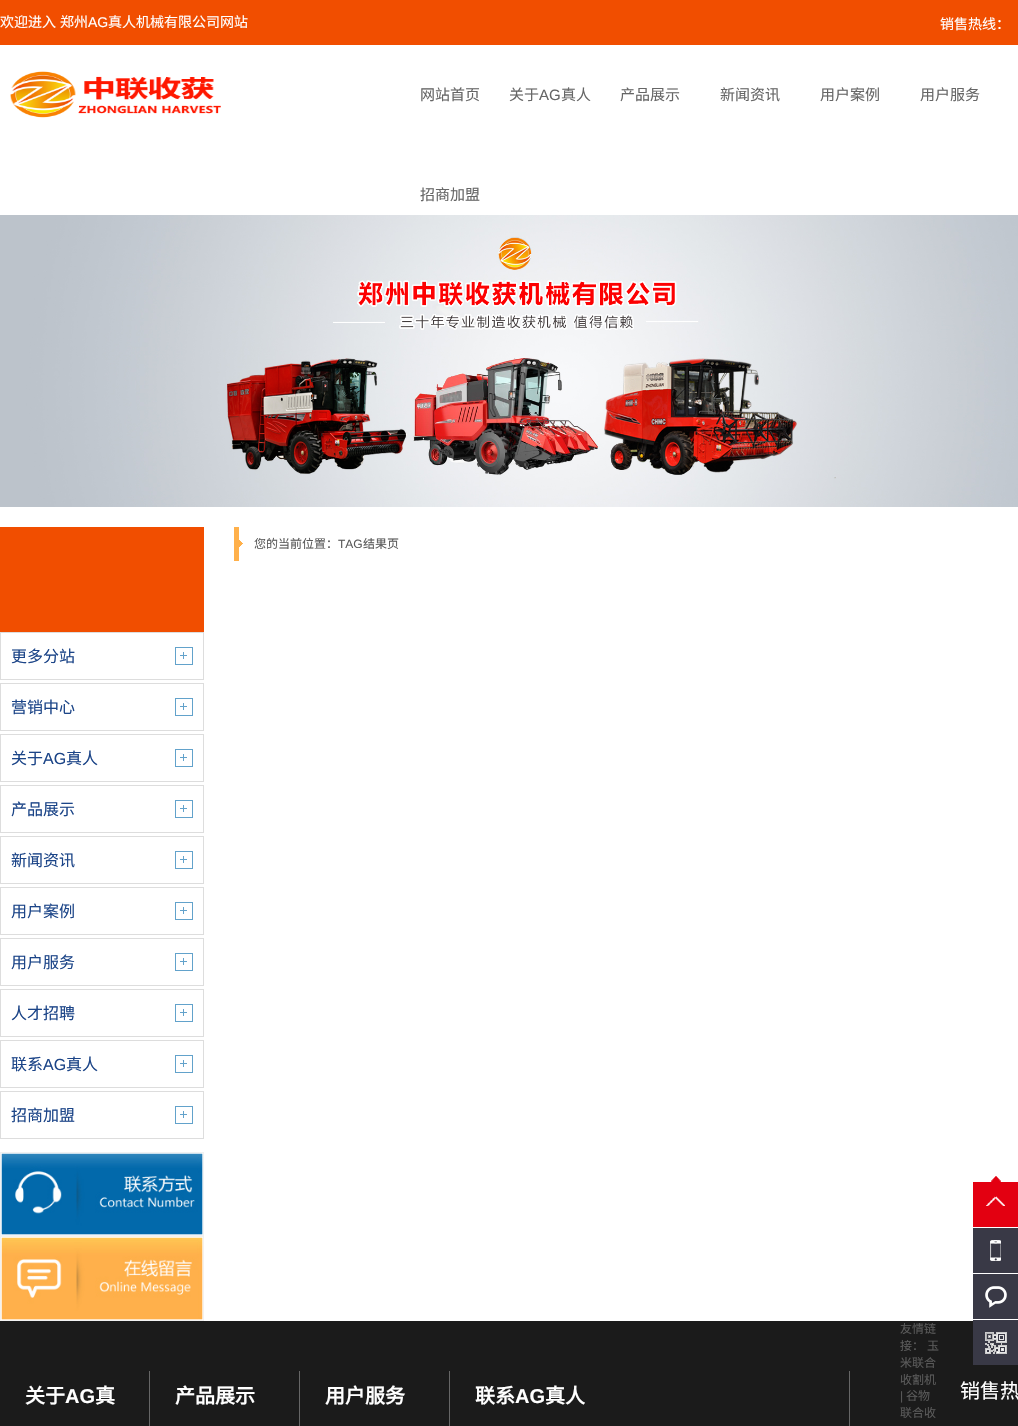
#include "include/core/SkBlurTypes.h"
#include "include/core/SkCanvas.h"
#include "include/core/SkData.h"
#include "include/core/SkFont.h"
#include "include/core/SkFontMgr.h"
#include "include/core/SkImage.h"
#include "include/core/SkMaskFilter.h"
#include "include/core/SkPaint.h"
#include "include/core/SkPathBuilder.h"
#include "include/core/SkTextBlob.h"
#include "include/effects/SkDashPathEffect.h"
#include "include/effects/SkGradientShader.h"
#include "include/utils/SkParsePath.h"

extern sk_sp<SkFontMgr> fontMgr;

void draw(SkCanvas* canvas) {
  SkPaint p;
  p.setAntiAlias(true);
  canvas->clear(SK_ColorWHITE);
  p.setColor(SkColorSetRGB(241, 78, 0));
  canvas->drawRect(SkRect::MakeLTRB(0, 0, 1018, 45), p);
  canvas->drawImageRect(SkImages::DeferredFromEncodedData(SkData::MakeFromFileName("images/1.png")), SkRect::MakeLTRB(10, 71, 221, 118), SkSamplingOptions());
  canvas->drawImageRect(SkImages::DeferredFromEncodedData(SkData::MakeFromFileName("images/2.png")), SkRect::MakeLTRB(0, 215, 1018, 507), SkSamplingOptions());
  canvas->drawImageRect(SkImages::DeferredFromEncodedData(SkData::MakeFromFileName("images/3.png")), SkRect::MakeLTRB(234, 527, 243, 561), SkSamplingOptions());
  canvas->drawRect(SkRect::MakeLTRB(0, 527, 204, 632), p);
  canvas->drawImageRect(SkImages::DeferredFromEncodedData(SkData::MakeFromFileName("images/4.png")), SkRect::MakeLTRB(175, 647, 193, 665), SkSamplingOptions());
  p.setStyle(SkPaint::kStroke_Style);
  p.setStrokeWidth(1);
  p.setColor(SkColorSetRGB(221, 221, 221));
  canvas->drawRect(SkRect::MakeLTRB(0.5f, 632.5f, 203.5f, 679.5f), p);
  canvas->drawImageRect(SkImages::DeferredFromEncodedData(SkData::MakeFromFileName("images/4.png")), SkRect::MakeLTRB(175, 698, 193, 716), SkSamplingOptions());
  canvas->drawRect(SkRect::MakeLTRB(0.5f, 683.5f, 203.5f, 730.5f), p);
  canvas->drawImageRect(SkImages::DeferredFromEncodedData(SkData::MakeFromFileName("images/4.png")), SkRect::MakeLTRB(175, 749, 193, 767), SkSamplingOptions());
  canvas->drawRect(SkRect::MakeLTRB(0.5f, 734.5f, 203.5f, 781.5f), p);
  canvas->drawImageRect(SkImages::DeferredFromEncodedData(SkData::MakeFromFileName("images/4.png")), SkRect::MakeLTRB(175, 800, 193, 818), SkSamplingOptions());
  canvas->drawRect(SkRect::MakeLTRB(0.5f, 785.5f, 203.5f, 832.5f), p);
  canvas->drawImageRect(SkImages::DeferredFromEncodedData(SkData::MakeFromFileName("images/4.png")), SkRect::MakeLTRB(175, 851, 193, 869), SkSamplingOptions());
  canvas->drawRect(SkRect::MakeLTRB(0.5f, 836.5f, 203.5f, 883.5f), p);
  canvas->drawImageRect(SkImages::DeferredFromEncodedData(SkData::MakeFromFileName("images/4.png")), SkRect::MakeLTRB(175, 902, 193, 920), SkSamplingOptions());
  canvas->drawRect(SkRect::MakeLTRB(0.5f, 887.5f, 203.5f, 934.5f), p);
  canvas->drawImageRect(SkImages::DeferredFromEncodedData(SkData::MakeFromFileName("images/4.png")), SkRect::MakeLTRB(175, 953, 193, 971), SkSamplingOptions());
  canvas->drawRect(SkRect::MakeLTRB(0.5f, 938.5f, 203.5f, 985.5f), p);
  canvas->drawImageRect(SkImages::DeferredFromEncodedData(SkData::MakeFromFileName("images/4.png")), SkRect::MakeLTRB(175, 1004, 193, 1022), SkSamplingOptions());
  canvas->drawRect(SkRect::MakeLTRB(0.5f, 989.5f, 203.5f, 1036.5f), p);
  canvas->drawImageRect(SkImages::DeferredFromEncodedData(SkData::MakeFromFileName("images/4.png")), SkRect::MakeLTRB(175, 1055, 193, 1073), SkSamplingOptions());
  canvas->drawRect(SkRect::MakeLTRB(0.5f, 1040.5f, 203.5f, 1087.5f), p);
  canvas->drawImageRect(SkImages::DeferredFromEncodedData(SkData::MakeFromFileName("images/4.png")), SkRect::MakeLTRB(175, 1106, 193, 1124), SkSamplingOptions());
  canvas->drawRect(SkRect::MakeLTRB(0.5f, 1091.5f, 203.5f, 1138.5f), p);
  canvas->drawImageRect(SkImages::DeferredFromEncodedData(SkData::MakeFromFileName("images/5.png")), SkRect::MakeLTRB(0, 1152, 204, 1236), SkSamplingOptions());
  canvas->drawImageRect(SkImages::DeferredFromEncodedData(SkData::MakeFromFileName("images/6.png")), SkRect::MakeLTRB(0, 1236, 204, 1321), SkSamplingOptions());
  canvas->drawImageRect(SkImages::DeferredFromEncodedData(SkData::MakeFromFileName("images/7.png")), SkRect::MakeLTRB(973, 1176, 1018, 1227), SkSamplingOptions());
  p.setStyle(SkPaint::kFill_Style);
  p.setColor(SkColorSetRGB(57, 57, 70));
  canvas->drawRect(SkRect::MakeLTRB(973, 1228, 1018, 1273), p);
  canvas->drawImageRect(SkImages::DeferredFromEncodedData(SkData::MakeFromFileName("images/8.png")), SkRect::MakeLTRB(990, 1240, 1001, 1261), SkSamplingOptions());
  canvas->drawRect(SkRect::MakeLTRB(973, 1274, 1018, 1319), p);
  canvas->drawImageRect(SkImages::DeferredFromEncodedData(SkData::MakeFromFileName("images/9.png")), SkRect::MakeLTRB(985, 1286, 1007, 1308), SkSamplingOptions());
  p.setColor(SkColorSetRGB(27, 27, 27));
  canvas->drawRect(SkRect::MakeLTRB(0, 1321, 1018, 1426), p);
  p.setColor(SkColorSetRGB(57, 57, 70));
  canvas->drawRect(SkRect::MakeLTRB(973, 1320, 1018, 1365), p);
  canvas->drawImageRect(SkImages::DeferredFromEncodedData(SkData::MakeFromFileName("images/10.png")), SkRect::MakeLTRB(985, 1332, 1007, 1354), SkSamplingOptions());
  p.setColor(SkColorSetRGB(102, 102, 102));
  canvas->drawRect(SkRect::MakeLTRB(149, 1371, 150, 1426), p);
  canvas->drawRect(SkRect::MakeLTRB(299, 1371, 300, 1426), p);
  canvas->drawRect(SkRect::MakeLTRB(449, 1371, 450, 1426), p);
  canvas->drawRect(SkRect::MakeLTRB(849, 1371, 850, 1426), p);
  SkFont font1(fontMgr->matchFamilyStyle("Noto Sans CJK SC", SkFontStyle::Normal()), 14);
  font1.setSubpixel(true);
  p.setColor(SK_ColorWHITE);
  canvas->drawString("欢迎进入", 0, 27, font1, p);
  canvas->drawString("郑州", 60, 27, font1, p);
  SkFont font2(fontMgr->matchFamilyStyle("Liberation Sans", SkFontStyle::Normal()), 14);
  font2.setSubpixel(true);
  canvas->drawString("AG", 88, 27, font2, p);
  canvas->drawString("真人机械有限公司网站", 108, 27, font1, p);
  canvas->drawString("销售热线：", 940, 29, font1, p);
  SkFont font3(fontMgr->matchFamilyStyle("Noto Sans CJK SC", SkFontStyle::Normal()), 15);
  font3.setSubpixel(true);
  p.setColor(SkColorSetRGB(102, 102, 102));
  canvas->drawString("网站首页", 420, 100, font3, p);
  canvas->drawString("关于", 509, 100, font3, p);
  SkFont font4(fontMgr->matchFamilyStyle("Liberation Sans", SkFontStyle::Normal()), 15);
  font4.setSubpixel(true);
  canvas->drawString("AG", 539, 100, font4, p);
  canvas->drawString("真人", 561, 100, font3, p);
  canvas->drawString("产品展示", 620, 100, font3, p);
  canvas->drawString("新闻资讯", 720, 100, font3, p);
  canvas->drawString("用户案例", 820, 100, font3, p);
  canvas->drawString("用户服务", 920, 100, font3, p);
  canvas->drawString("招商加盟", 420, 200, font3, p);
  SkFont font5(fontMgr->matchFamilyStyle("Noto Sans CJK SC", SkFontStyle::Normal()), 12);
  font5.setSubpixel(true);
  p.setColor(SkColorSetRGB(90, 90, 90));
  canvas->drawString("您的当前位置：", 254, 548, font5, p);
  SkFont font6(fontMgr->matchFamilyStyle("Liberation Sans", SkFontStyle::Normal()), 12);
  font6.setSubpixel(true);
  canvas->drawString("TAG", 338, 548, font6, p);
  canvas->drawString("结果页", 363, 548, font5, p);
  SkFont font7(fontMgr->matchFamilyStyle("Noto Sans CJK SC", SkFontStyle::Normal()), 16);
  font7.setSubpixel(true);
  p.setColor(SkColorSetRGB(28, 69, 136));
  canvas->drawString("更多分站", 11, 662, font7, p);
  canvas->drawString("营销中心", 11, 713, font7, p);
  canvas->drawString("关于", 11, 764, font7, p);
  SkFont font8(fontMgr->matchFamilyStyle("Liberation Sans", SkFontStyle::Normal()), 16);
  font8.setSubpixel(true);
  canvas->drawString("AG", 43, 764, font8, p);
  canvas->drawString("真人", 66, 764, font7, p);
  canvas->drawString("产品展示", 11, 815, font7, p);
  canvas->drawString("新闻资讯", 11, 866, font7, p);
  canvas->drawString("用户案例", 11, 917, font7, p);
  canvas->drawString("用户服务", 11, 968, font7, p);
  canvas->drawString("人才招聘", 11, 1019, font7, p);
  canvas->drawString("联系", 11, 1070, font7, p);
  canvas->drawString("AG", 43, 1070, font8, p);
  canvas->drawString("真人", 66, 1070, font7, p);
  canvas->drawString("招商加盟", 11, 1121, font7, p);
  p.setColor(SkColorSetRGB(90, 90, 90));
  canvas->drawString("友情链", 900, 1333, font5, p);
  canvas->drawString("接：", 900, 1350, font5, p);
  canvas->drawString("玉", 927, 1350, font5, p);
  canvas->drawString("米联合", 900, 1367, font5, p);
  canvas->drawString("收割机", 900, 1384, font5, p);
  canvas->drawString("|", 900, 1400, font6, p);
  canvas->drawString("谷物", 906, 1400, font5, p);
  canvas->drawString("联合收", 900, 1417, font5, p);
  SkFont font9(fontMgr->matchFamilyStyle("Noto Sans CJK SC", SkFontStyle::Bold()), 20);
  font9.setSubpixel(true);
  p.setColor(SK_ColorWHITE);
  canvas->drawString("关于", 25, 1403, font9, p);
  SkFont font10(fontMgr->matchFamilyStyle("Liberation Sans", SkFontStyle::Bold()), 20);
  font10.setSubpixel(true);
  canvas->drawString("AG", 65, 1403, font10, p);
  canvas->drawString("真", 95, 1403, font9, p);
  canvas->drawString("产品展示", 175, 1403, font9, p);
  canvas->drawString("用户服务", 325, 1403, font9, p);
  canvas->drawString("联系", 475, 1403, font9, p);
  canvas->drawString("AG", 515, 1403, font10, p);
  canvas->drawString("真人", 545, 1403, font9, p);
  SkFont font11(fontMgr->matchFamilyStyle("Noto Sans CJK SC", SkFontStyle::Normal()), 20);
  font11.setSubpixel(true);
  canvas->drawString("销售热", 960, 1398, font11, p);
}
